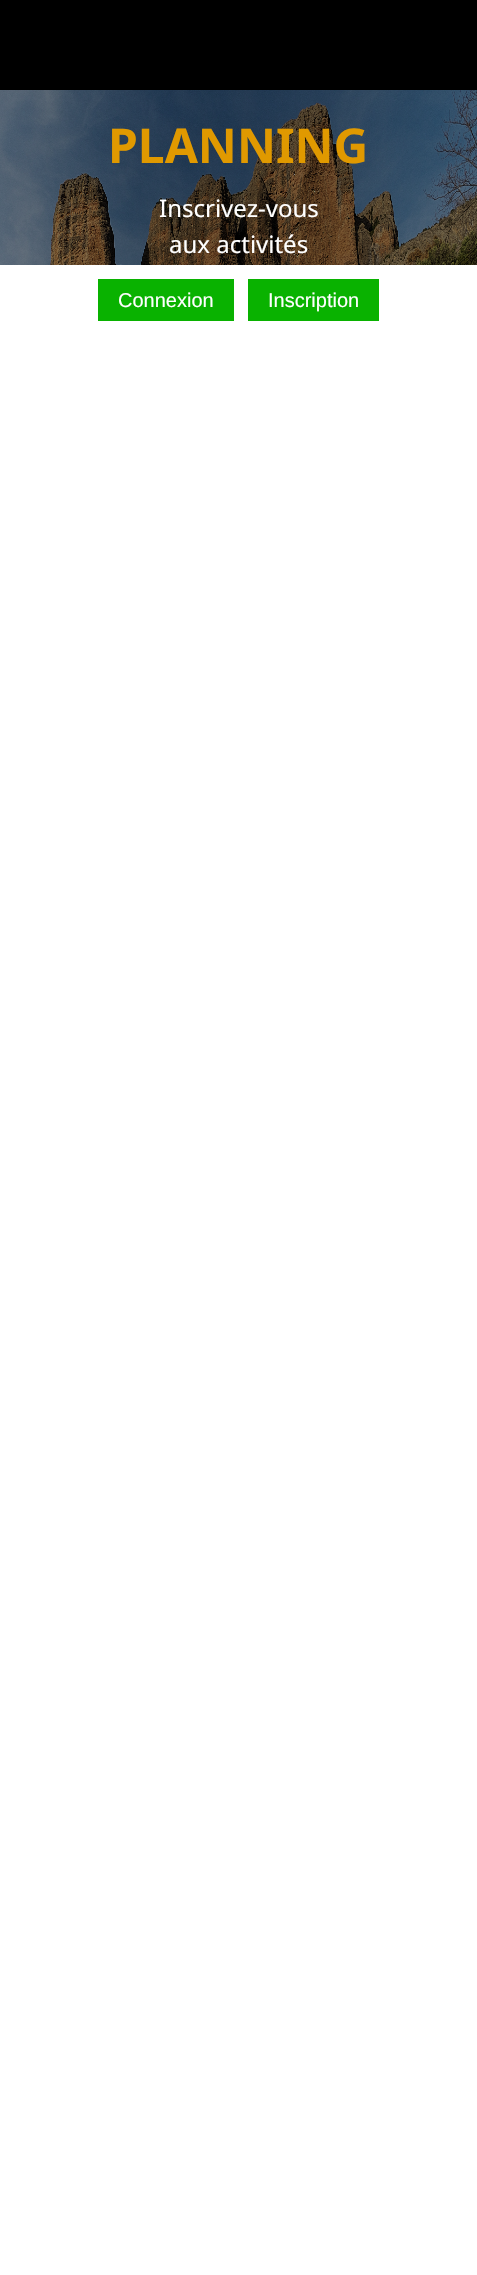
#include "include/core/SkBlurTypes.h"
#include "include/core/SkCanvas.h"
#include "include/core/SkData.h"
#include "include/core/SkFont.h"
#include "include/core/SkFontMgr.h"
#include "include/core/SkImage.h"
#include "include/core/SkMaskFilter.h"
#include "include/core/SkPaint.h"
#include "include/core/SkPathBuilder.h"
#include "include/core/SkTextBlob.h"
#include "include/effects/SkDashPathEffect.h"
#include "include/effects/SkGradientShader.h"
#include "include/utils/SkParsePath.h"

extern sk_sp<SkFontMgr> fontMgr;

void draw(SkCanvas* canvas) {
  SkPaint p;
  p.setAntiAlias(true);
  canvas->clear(SK_ColorWHITE);
  p.setColor(SK_ColorBLACK);
  canvas->drawRect(SkRect::MakeLTRB(0, 0, 477, 90), p);
  canvas->drawImageRect(SkImages::DeferredFromEncodedData(SkData::MakeFromFileName("images/1.png")), SkRect::MakeLTRB(0, 90, 477, 265), SkSamplingOptions());
  p.setColor(SkColorSetRGB(9, 178, 0));
  canvas->drawRect(SkRect::MakeLTRB(98, 279, 234, 321), p);
  canvas->drawRect(SkRect::MakeLTRB(248, 279, 379, 321), p);
  SkFont font1(fontMgr->matchFamilyStyle("Noto Sans", SkFontStyle::Bold()), 48);
  font1.setSubpixel(true);
  p.setColor(SkColorSetRGB(224, 153, 0));
  canvas->drawString("PLANNING", 108, 163, font1, p);
  SkFont font2(fontMgr->matchFamilyStyle("Noto Sans", SkFontStyle::Normal()), 24);
  font2.setSubpixel(true);
  p.setColor(SK_ColorWHITE);
  canvas->drawString("Inscrivez-vous", 159, 217, font2, p);
  canvas->drawString("aux activités", 169, 253, font2, p);
  SkFont font3(fontMgr->matchFamilyStyle("Liberation Sans", SkFontStyle::Normal()), 20);
  font3.setSubpixel(true);
  canvas->drawString("Connexion", 118, 307, font3, p);
  canvas->drawString("Inscription", 268, 307, font3, p);
}
